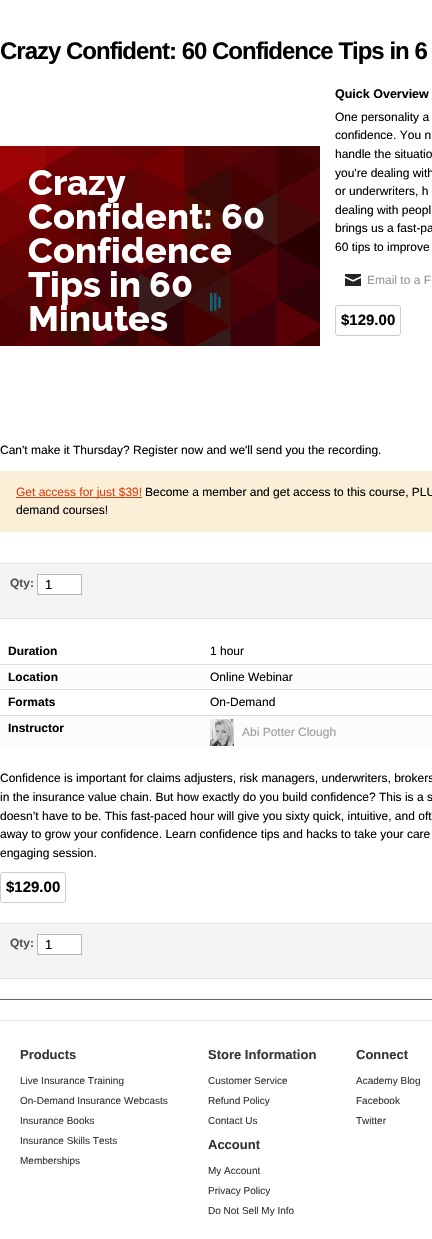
#include "include/core/SkBlurTypes.h"
#include "include/core/SkCanvas.h"
#include "include/core/SkData.h"
#include "include/core/SkFont.h"
#include "include/core/SkFontMgr.h"
#include "include/core/SkImage.h"
#include "include/core/SkMaskFilter.h"
#include "include/core/SkPaint.h"
#include "include/core/SkPathBuilder.h"
#include "include/core/SkTextBlob.h"
#include "include/effects/SkDashPathEffect.h"
#include "include/effects/SkGradientShader.h"
#include "include/utils/SkParsePath.h"

extern sk_sp<SkFontMgr> fontMgr;

void draw(SkCanvas* canvas) {
  SkPaint p;
  p.setAntiAlias(true);
  auto spacedText = [&](const char* s, float x, float y, const SkFont& font, const SkPaint& ink, float letter, float word) {
    std::vector<SkGlyphID> glyphs(font.countText(s, strlen(s), SkTextEncoding::kUTF8));
    std::vector<float> xs(glyphs.size());
    font.textToGlyphs(s, strlen(s), SkTextEncoding::kUTF8, glyphs);
    font.getXPos(glyphs, xs, x);
    float extra = 0;
    for (size_t i = 0; i < glyphs.size(); i++) {
      xs[i] += extra;
      extra += letter + word * (glyphs[i] == font.unicharToGlyph(' '));
    }
    canvas->drawTextBlob(SkTextBlob::MakeFromPosHGlyphs(glyphs, xs, y, font), 0, 0, ink);
  };
  canvas->clear(SK_ColorWHITE);
  canvas->drawImageRect(SkImages::DeferredFromEncodedData(SkData::MakeFromFileName("images/1.png")), SkRect::MakeLTRB(0, 146, 320, 346), SkSamplingOptions());
  canvas->drawImageRect(SkImages::DeferredFromEncodedData(SkData::MakeFromFileName("images/2.png")), SkRect::MakeLTRB(345, 274, 361, 286), SkSamplingOptions());
  p.setStyle(SkPaint::kStroke_Style);
  p.setStrokeWidth(1);
  p.setColor(SkColorSetRGB(204, 204, 204));
  canvas->drawRoundRect(SkRect::MakeLTRB(335.5f, 305.5f, 400.5f, 335.5f), 2.5f, 2.5f, p);
  p.setStyle(SkPaint::kFill_Style);
  p.setColor(SkColorSetRGB(252, 239, 215));
  canvas->drawRect(SkRect::MakeLTRB(0, 471, 432, 532), p);
  p.setColor(SkColorSetRGB(216, 67, 21));
  canvas->drawRect(SkRect::MakeLTRB(16, 497, 142, 498), p);
  p.setColor(SkColorSetRGB(244, 244, 244));
  canvas->drawRect(SkRect::MakeLTRB(0, 564, 432, 618), p);
  p.setColor(SkColorSetRGB(224, 224, 224));
  canvas->drawRect(SkRect::MakeLTRB(0, 563, 432, 564), p);
  canvas->drawRect(SkRect::MakeLTRB(0, 618, 432, 619), p);
  p.setColor(SK_ColorWHITE);
  canvas->drawRect(SkRect::MakeLTRB(37.5f, 574.5f, 81.5f, 594.5f), p);
  p.setStyle(SkPaint::kStroke_Style);
  p.setColor(SkColorSetRGB(182, 182, 182));
  canvas->drawRect(SkRect::MakeLTRB(37.5f, 574.5f, 81.5f, 594.5f), p);
  p.setStyle(SkPaint::kFill_Style);
  p.setColor(SkColorSetRGB(217, 221, 227));
  canvas->drawRect(SkRect::MakeLTRB(0, 664, 432, 665), p);
  p.setColor(SkColorSetRGB(252, 252, 252));
  canvas->drawRect(SkRect::MakeLTRB(0, 665, 432, 689), p);
  p.setColor(SkColorSetRGB(217, 221, 227));
  canvas->drawRect(SkRect::MakeLTRB(0, 689, 432, 690), p);
  canvas->drawRect(SkRect::MakeLTRB(0, 715, 432, 716), p);
  p.setColor(SkColorSetRGB(252, 252, 252));
  canvas->drawRect(SkRect::MakeLTRB(0, 716, 432, 749), p);
  canvas->drawImageRect(SkImages::DeferredFromEncodedData(SkData::MakeFromFileName("images/3.png")), SkRect::MakeLTRB(210, 719, 234, 746), SkSamplingOptions());
  p.setStyle(SkPaint::kStroke_Style);
  p.setColor(SkColorSetRGB(204, 204, 204));
  canvas->drawRoundRect(SkRect::MakeLTRB(0.5f, 872.5f, 65.5f, 902.5f), 2.5f, 2.5f, p);
  p.setStyle(SkPaint::kFill_Style);
  p.setColor(SkColorSetRGB(244, 244, 244));
  canvas->drawRect(SkRect::MakeLTRB(0, 924, 432, 978), p);
  p.setColor(SkColorSetRGB(224, 224, 224));
  canvas->drawRect(SkRect::MakeLTRB(0, 923, 432, 924), p);
  canvas->drawRect(SkRect::MakeLTRB(0, 978, 432, 979), p);
  p.setColor(SK_ColorWHITE);
  canvas->drawRect(SkRect::MakeLTRB(37.5f, 934.5f, 81.5f, 954.5f), p);
  p.setStyle(SkPaint::kStroke_Style);
  p.setColor(SkColorSetRGB(182, 182, 182));
  canvas->drawRect(SkRect::MakeLTRB(37.5f, 934.5f, 81.5f, 954.5f), p);
  p.setStyle(SkPaint::kFill_Style);
  p.setColor(SkColorSetRGB(102, 102, 102));
  canvas->drawRect(SkRect::MakeLTRB(0, 999, 432, 1000), p);
  p.setColor(SkColorSetRGB(233, 233, 233));
  canvas->drawRect(SkRect::MakeLTRB(0, 1020, 432, 1021), p);
  canvas->drawImageRect(SkImages::DeferredFromEncodedData(SkData::MakeFromFileName("images/5.png")), SkRect::MakeLTRB(210, 296, 221, 312), SkSamplingOptions());
  canvas->drawImageRect(SkImages::DeferredFromEncodedData(SkData::MakeFromFileName("images/4.png")), SkRect::MakeLTRB(210, 292, 221, 308), SkSamplingOptions());
  SkFont font1(fontMgr->matchFamilyStyle("Liberation Sans", SkFontStyle::Bold()), 24);
  font1.setSubpixel(true);
  p.setColor(SK_ColorBLACK);
  spacedText("Crazy Confident: 60 Confidence Tips in 6", 0, 59, font1, p, -1, 0);
  SkFont font2(fontMgr->matchFamilyStyle("Liberation Sans", SkFontStyle::Bold()), 12.5f);
  font2.setSubpixel(true);
  canvas->drawString("Quick Overview", 335, 98, font2, p);
  SkFont font3(fontMgr->matchFamilyStyle("Liberation Sans", SkFontStyle::Normal()), 12);
  font3.setSubpixel(true);
  canvas->drawString("One personality a", 335, 121, font3, p);
  canvas->drawString("confidence. You n", 335, 139, font3, p);
  canvas->drawString("handle the situatio", 335, 158, font3, p);
  canvas->drawString("you're dealing with", 335, 177, font3, p);
  canvas->drawString("or underwriters, h", 335, 195, font3, p);
  canvas->drawString("dealing with peopl", 335, 214, font3, p);
  canvas->drawString("brings us a fast-pa", 335, 232, font3, p);
  canvas->drawString("60 tips to improve", 335, 251, font3, p);
  p.setColor(SkColorSetRGB(146, 149, 155));
  canvas->drawString("Email to a F", 367, 284, font3, p);
  SkFont font4(fontMgr->matchFamilyStyle("Liberation Sans", SkFontStyle::Bold()), 15);
  font4.setSubpixel(true);
  p.setColor(SK_ColorBLACK);
  canvas->drawString("$129.00", 341, 325, font4, p);
  canvas->drawString("Can't make it Thursday? Register now and we'll send you the recording.", 0, 454, font3, p);
  p.setColor(SkColorSetRGB(216, 67, 21));
  canvas->drawString("Get access for just $39!", 16, 496, font3, p);
  p.setColor(SK_ColorBLACK);
  canvas->drawString("Become a member and get access to this course, PLU", 145, 496, font3, p);
  canvas->drawString("demand courses!", 16, 514, font3, p);
  SkFont font5(fontMgr->matchFamilyStyle("Liberation Sans", SkFontStyle::Bold()), 12);
  font5.setSubpixel(true);
  p.setColor(SkColorSetRGB(85, 85, 85));
  canvas->drawString("Qty:", 10, 587, font5, p);
  SkFont font6(fontMgr->matchFamilyStyle("Liberation Sans", SkFontStyle::Normal()), 13);
  font6.setSubpixel(true);
  p.setColor(SK_ColorBLACK);
  canvas->drawString("1", 45, 589, font6, p);
  canvas->drawString("Duration", 8, 655, font5, p);
  canvas->drawString("1 hour", 210, 655, font3, p);
  canvas->drawString("Location", 8, 681, font5, p);
  canvas->drawString("Online Webinar", 210, 681, font3, p);
  canvas->drawString("Formats", 8, 706, font5, p);
  canvas->drawString("On-Demand", 210, 706, font3, p);
  canvas->drawString("Instructor", 8, 732, font5, p);
  p.setColor(SkColorSetRGB(154, 154, 154));
  canvas->drawString("Abi Potter Clough", 242, 736, font3, p);
  p.setColor(SK_ColorBLACK);
  canvas->drawString("Confidence is important for claims adjusters, risk managers, underwriters, brokers", 0, 782, font3, p);
  canvas->drawString("in the insurance value chain. But how exactly do you build confidence? This is a s", 0, 801, font3, p);
  canvas->drawString("doesn’t have to be. This fast-paced hour will give you sixty quick, intuitive, and oft", 0, 820, font3, p);
  canvas->drawString("away to grow your confidence. Learn confidence tips and hacks to take your care", 0, 838, font3, p);
  canvas->drawString("engaging session.", 0, 857, font3, p);
  canvas->drawString("$129.00", 6, 892, font4, p);
  p.setColor(SkColorSetRGB(85, 85, 85));
  canvas->drawString("Qty:", 10, 947, font5, p);
  p.setColor(SK_ColorBLACK);
  canvas->drawString("1", 45, 949, font6, p);
  SkFont font7(fontMgr->matchFamilyStyle("Liberation Sans", SkFontStyle::Bold()), 13);
  font7.setSubpixel(true);
  p.setColor(SkColorSetRGB(53, 53, 53));
  canvas->drawString("Products", 20, 1059, font7, p);
  SkFont font8(fontMgr->matchFamilyStyle("Liberation Sans", SkFontStyle::Normal()), 10);
  font8.setSubpixel(true);
  canvas->drawString("Live Insurance Training", 20, 1084, font8, p);
  canvas->drawString("On-Demand Insurance Webcasts", 20, 1104, font8, p);
  canvas->drawString("Insurance Books", 20, 1124, font8, p);
  canvas->drawString("Insurance Skills Tests", 20, 1144, font8, p);
  canvas->drawString("Memberships", 20, 1164, font8, p);
  canvas->drawString("Store Information", 208, 1059, font7, p);
  canvas->drawString("Customer Service", 208, 1084, font8, p);
  canvas->drawString("Refund Policy", 208, 1104, font8, p);
  canvas->drawString("Contact Us", 208, 1124, font8, p);
  canvas->drawString("Account", 208, 1149, font7, p);
  canvas->drawString("My Account", 208, 1174, font8, p);
  canvas->drawString("Privacy Policy", 208, 1194, font8, p);
  canvas->drawString("Do Not Sell My Info", 208, 1214, font8, p);
  canvas->drawString("Connect", 356, 1059, font7, p);
  canvas->drawString("Academy Blog", 356, 1084, font8, p);
  canvas->drawString("Facebook", 356, 1104, font8, p);
  canvas->drawString("Twitter", 356, 1124, font8, p);
}
